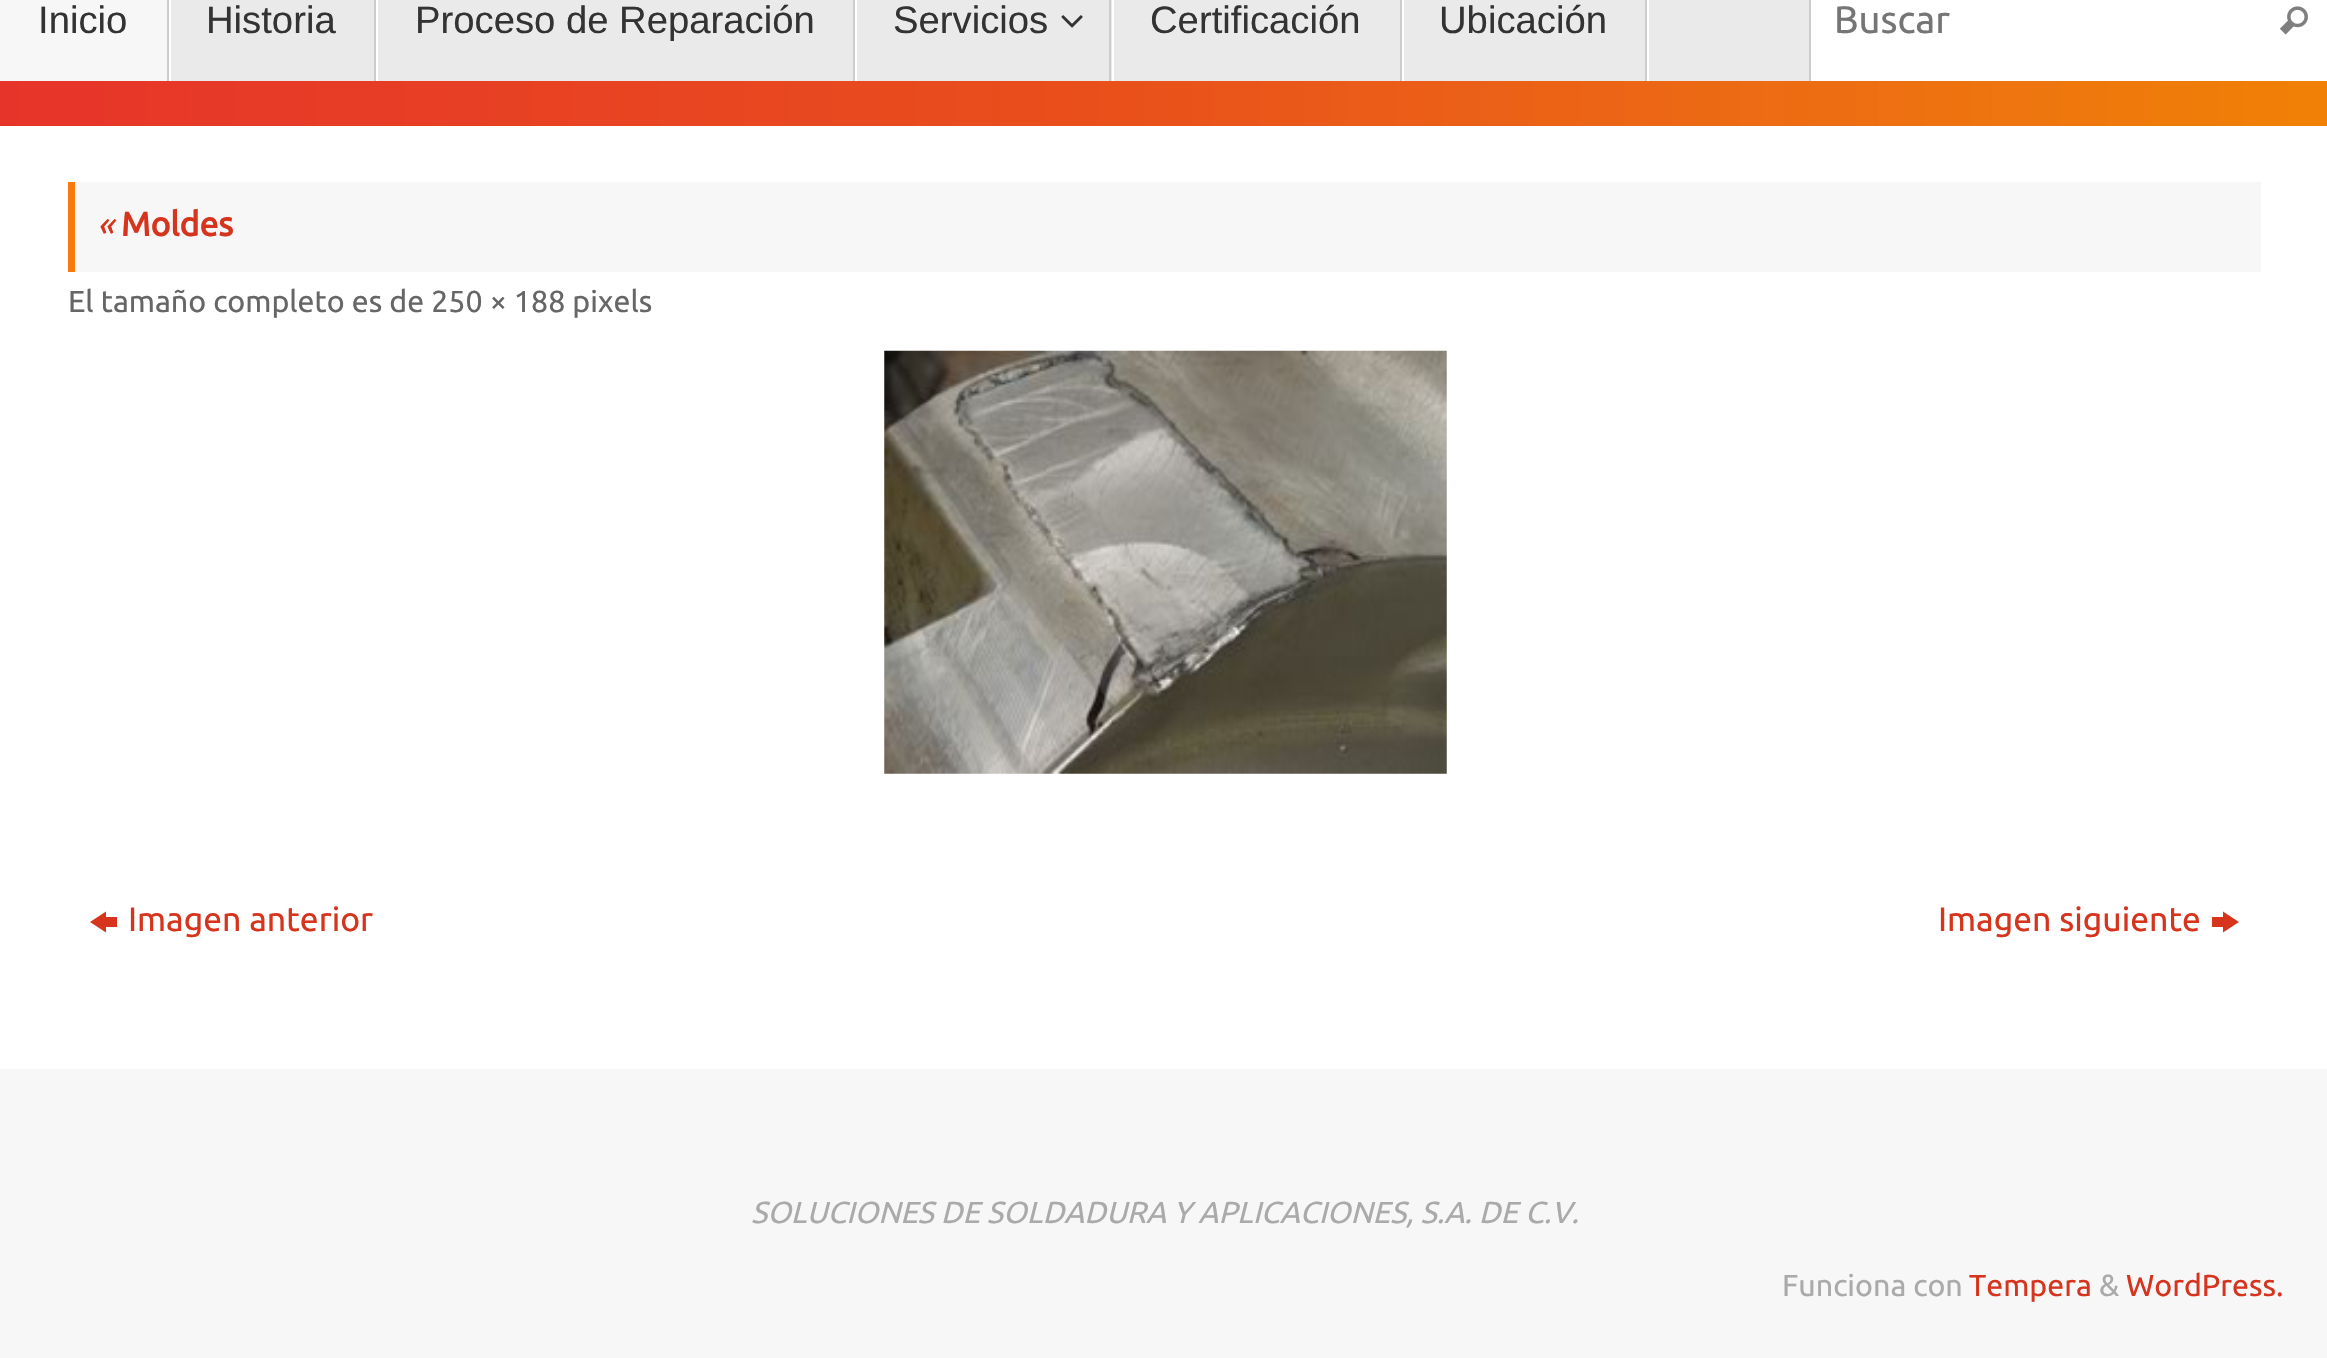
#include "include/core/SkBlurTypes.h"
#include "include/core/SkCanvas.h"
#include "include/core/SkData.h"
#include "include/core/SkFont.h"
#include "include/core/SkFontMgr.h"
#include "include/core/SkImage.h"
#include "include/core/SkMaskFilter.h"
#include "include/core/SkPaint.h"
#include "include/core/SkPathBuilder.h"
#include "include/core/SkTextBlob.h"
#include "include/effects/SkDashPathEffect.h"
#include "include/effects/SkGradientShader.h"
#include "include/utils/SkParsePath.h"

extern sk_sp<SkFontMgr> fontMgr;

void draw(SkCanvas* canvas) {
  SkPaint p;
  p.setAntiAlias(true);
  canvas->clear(SK_ColorWHITE);
  canvas->drawImageRect(SkImages::DeferredFromEncodedData(SkData::MakeFromFileName("images/1.png")), SkRect::MakeLTRB(0, 81, 2327, 126), SkSamplingOptions());
  p.setColor(SkColorSetRGB(234, 234, 234));
  canvas->drawRect(SkRect::MakeLTRB(171, 0, 1809, 81), p);
  p.setColor(SkColorSetRGB(247, 247, 247));
  canvas->drawRect(SkRect::MakeLTRB(0, 0, 167, 81), p);
  p.setColor(SkColorSetRGB(204, 204, 204));
  canvas->drawRect(SkRect::MakeLTRB(167, 0, 169, 81), p);
  p.setColor(SK_ColorWHITE);
  canvas->drawRect(SkRect::MakeLTRB(376, 0, 378, 81), p);
  p.setColor(SkColorSetRGB(204, 204, 204));
  canvas->drawRect(SkRect::MakeLTRB(374, 0, 376, 81), p);
  p.setColor(SK_ColorWHITE);
  canvas->drawRect(SkRect::MakeLTRB(855, 0, 857, 81), p);
  p.setColor(SkColorSetRGB(204, 204, 204));
  canvas->drawRect(SkRect::MakeLTRB(853, 0, 855, 81), p);
  p.setColor(SK_ColorWHITE);
  canvas->drawRect(SkRect::MakeLTRB(1112, 0, 1114, 81), p);
  p.setColor(SkColorSetRGB(204, 204, 204));
  canvas->drawRect(SkRect::MakeLTRB(1109, 0, 1111, 81), p);
  canvas->drawImageRect(SkImages::DeferredFromEncodedData(SkData::MakeFromFileName("images/2.png")), SkRect::MakeLTRB(1061, 15, 1083, 28), SkSamplingOptions());
  p.setColor(SK_ColorWHITE);
  canvas->drawRect(SkRect::MakeLTRB(1402, 0, 1404, 81), p);
  p.setColor(SkColorSetRGB(204, 204, 204));
  canvas->drawRect(SkRect::MakeLTRB(1400, 0, 1402, 81), p);
  p.setColor(SK_ColorWHITE);
  canvas->drawRect(SkRect::MakeLTRB(1647, 0, 1649, 81), p);
  p.setColor(SkColorSetRGB(204, 204, 204));
  canvas->drawRect(SkRect::MakeLTRB(1645, 0, 1647, 81), p);
  canvas->drawRect(SkRect::MakeLTRB(1809, 0, 1811, 81), p);
  canvas->drawImageRect(SkImages::DeferredFromEncodedData(SkData::MakeFromFileName("images/3.png")), SkRect::MakeLTRB(2280, 6, 2308, 35), SkSamplingOptions());
  p.setColor(SkColorSetRGB(247, 247, 247));
  canvas->drawRect(SkRect::MakeLTRB(75, 182, 2261, 272), p);
  p.setColor(SkColorSetRGB(246, 122, 14));
  canvas->drawRect(SkRect::MakeLTRB(68, 182, 75, 272), p);
  canvas->drawImageRect(SkImages::DeferredFromEncodedData(SkData::MakeFromFileName("images/4.png")), SkRect::MakeLTRB(884, 350, 1447, 774), SkSamplingOptions());
  p.setColor(SkColorSetRGB(214, 52, 29));
  canvas->drawPath(SkPathBuilder().moveTo(90, 922).lineTo(106, 911.5f).lineTo(106, 917).lineTo(117, 917).lineTo(117, 927).lineTo(106, 927).lineTo(106, 932.5f).close().detach(), p);
  canvas->drawPath(SkPathBuilder().moveTo(2212, 927).lineTo(2212, 917).lineTo(2223, 917).lineTo(2223, 911.5f).lineTo(2239, 922).lineTo(2223, 932.5f).lineTo(2223, 927).close().detach(), p);
  p.setColor(SkColorSetRGB(247, 247, 247));
  canvas->drawRect(SkRect::MakeLTRB(0, 1069, 2327, 1358), p);
  SkFont font1(fontMgr->matchFamilyStyle("Liberation Sans", SkFontStyle::Normal()), 38.25f);
  font1.setSubpixel(true);
  p.setColor(SkColorSetRGB(51, 51, 51));
  canvas->drawString("Inicio", 38, 33, font1, p);
  canvas->drawString("Historia", 206, 33, font1, p);
  canvas->drawString("Proceso de Reparación", 415, 33, font1, p);
  canvas->drawString("Servicios", 893, 33, font1, p);
  canvas->drawString("Certificación", 1150, 33, font1, p);
  canvas->drawString("Ubicación", 1439, 33, font1, p);
  SkFont font2(fontMgr->matchFamilyStyle("Ubuntu", SkFontStyle::Normal()), 38.25f);
  font2.setSubpixel(true);
  p.setColor(SkColorSetRGB(117, 117, 117));
  canvas->drawString("Buscar", 1834, 33, font2, p);
  SkFont font3(fontMgr->matchFamilyStyle("Ubuntu", SkFontStyle::Italic()), 33.75f);
  font3.setSubpixel(true);
  p.setColor(SkColorSetRGB(214, 52, 29));
  canvas->drawString("«", 97, 236, font3, p);
  SkFont font4(fontMgr->matchFamilyStyle("Ubuntu", SkFontStyle::Bold()), 33.75f);
  font4.setSubpixel(true);
  canvas->drawString("Moldes", 121, 236, font4, p);
  SkFont font5(fontMgr->matchFamilyStyle("Ubuntu", SkFontStyle::Normal()), 30.4f);
  font5.setSubpixel(true);
  p.setColor(SkColorSetRGB(102, 102, 102));
  canvas->drawString("El tamaño completo es de 250 × 188 pixels", 68, 312, font5, p);
  SkFont font6(fontMgr->matchFamilyStyle("Ubuntu", SkFontStyle::Normal()), 33.75f);
  font6.setSubpixel(true);
  p.setColor(SkColorSetRGB(214, 52, 29));
  canvas->drawString("Imagen anterior", 128, 931, font6, p);
  canvas->drawString("Imagen siguiente", 1938, 931, font6, p);
  SkFont font7(fontMgr->matchFamilyStyle("Ubuntu", SkFontStyle::Italic()), 30.4f);
  font7.setSubpixel(true);
  p.setColor(SkColorSetRGB(170, 170, 170));
  canvas->drawString("SOLUCIONES DE SOLDADURA Y APLICACIONES, S.A. DE C.V.", 751, 1223, font7, p);
  canvas->drawString("Funciona con", 1782, 1296, font5, p);
  p.setColor(SkColorSetRGB(214, 52, 29));
  canvas->drawString("Tempera", 1969, 1296, font5, p);
  p.setColor(SkColorSetRGB(170, 170, 170));
  canvas->drawString("&", 2099, 1296, font5, p);
  p.setColor(SkColorSetRGB(214, 52, 29));
  canvas->drawString("WordPress.", 2126, 1296, font5, p);
}
